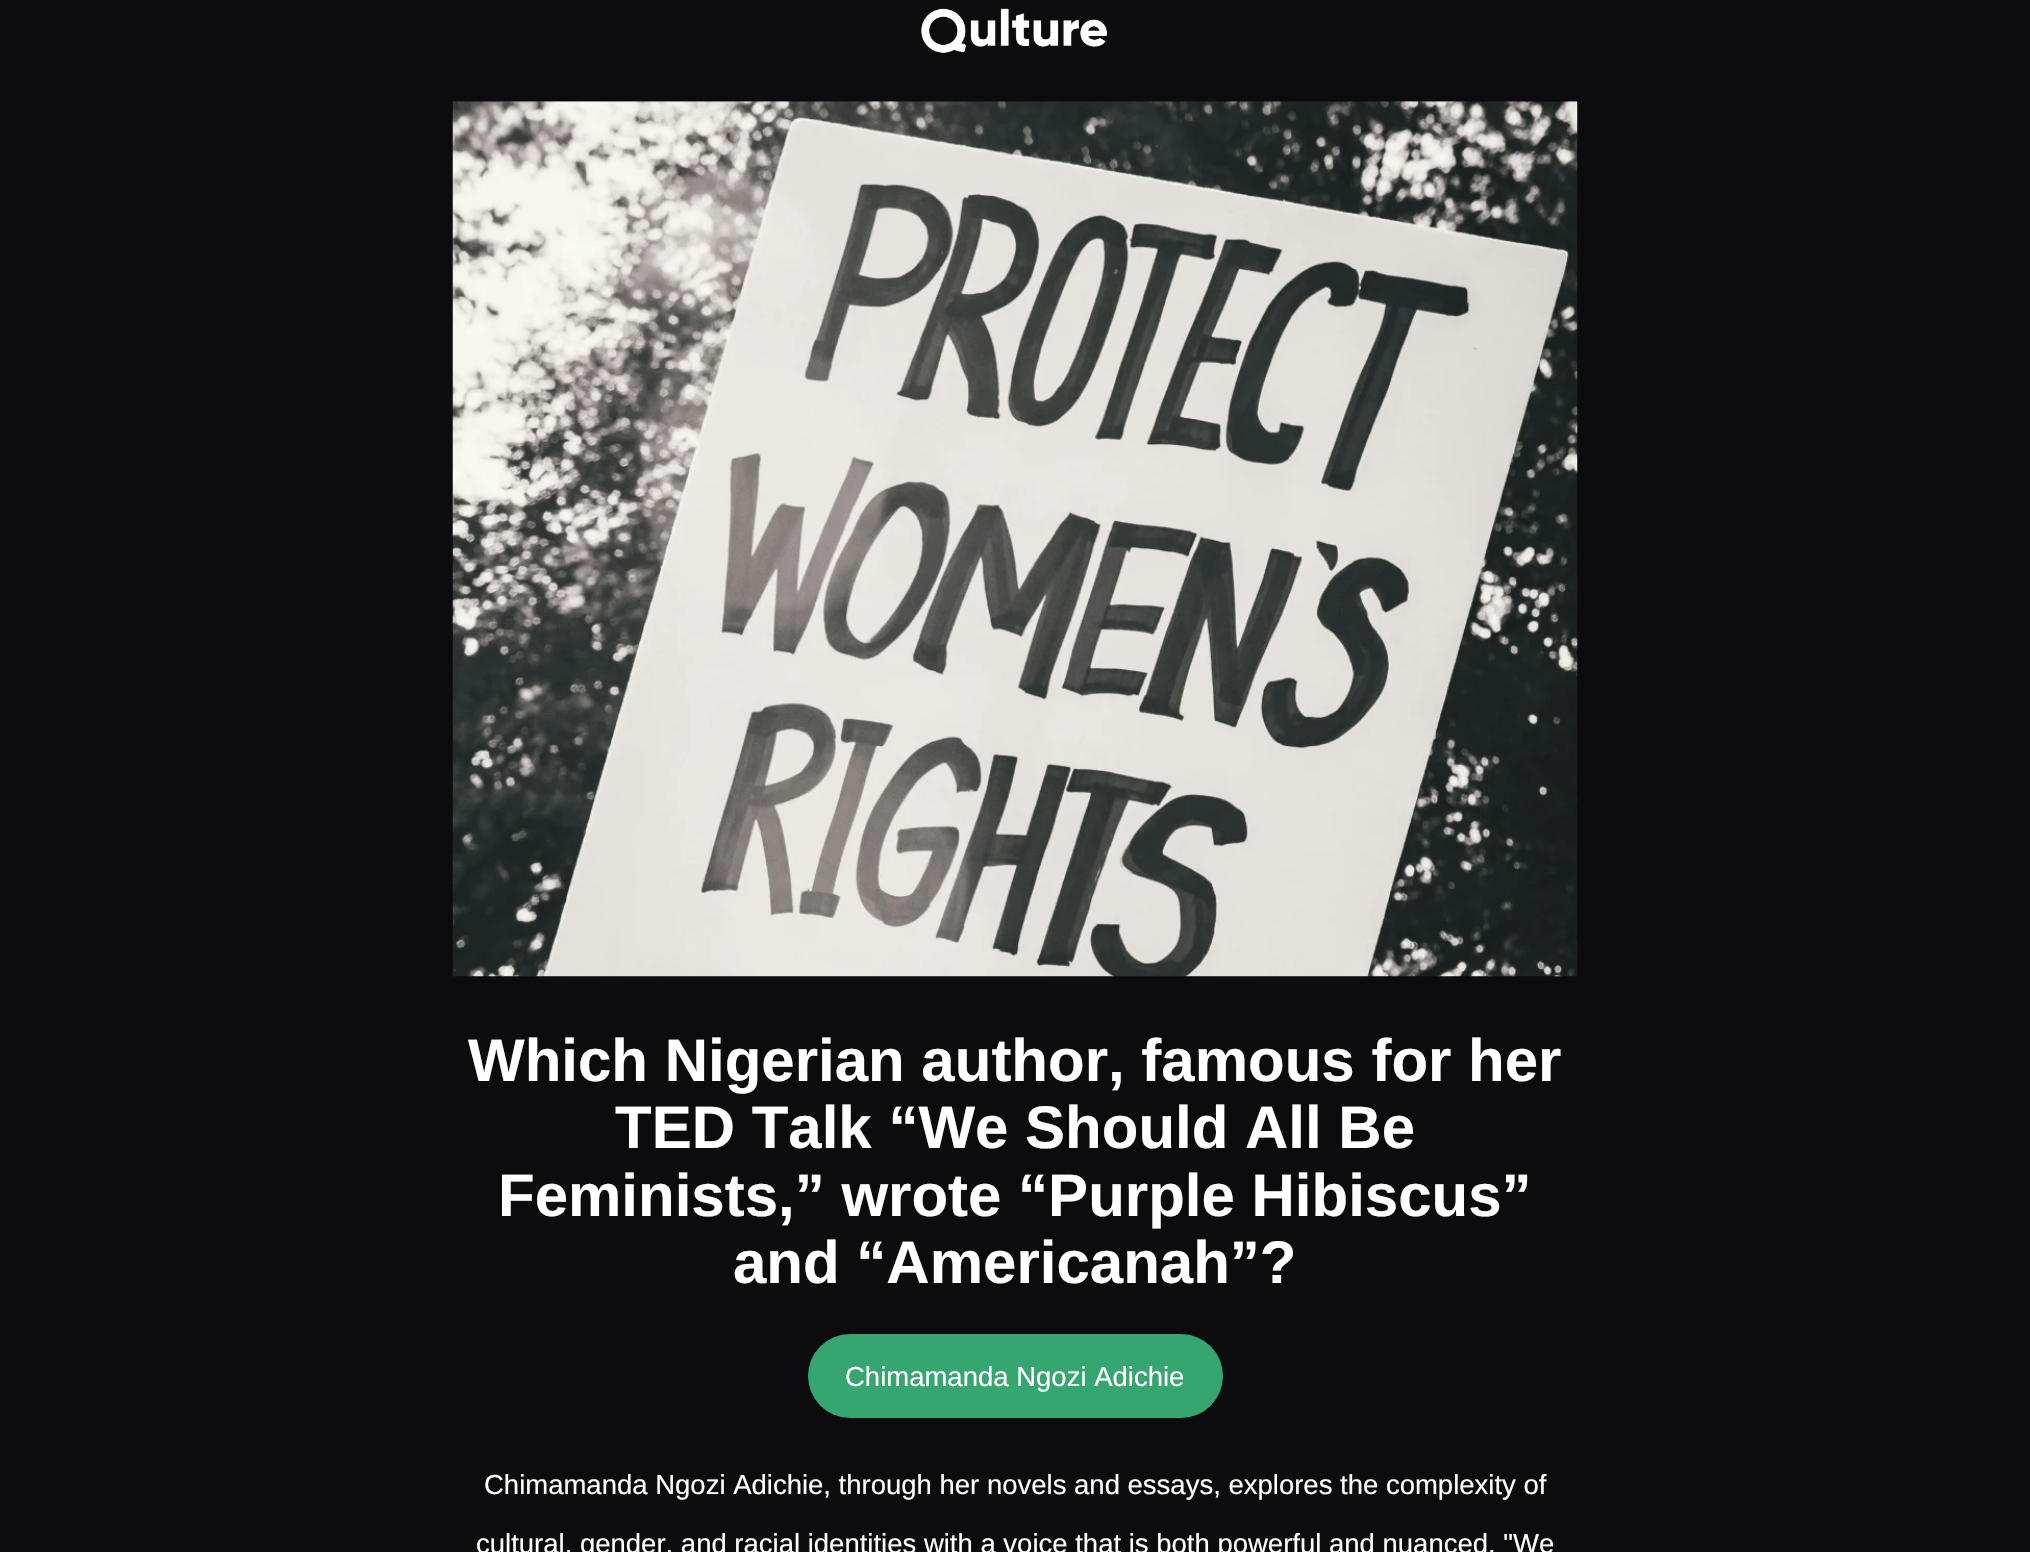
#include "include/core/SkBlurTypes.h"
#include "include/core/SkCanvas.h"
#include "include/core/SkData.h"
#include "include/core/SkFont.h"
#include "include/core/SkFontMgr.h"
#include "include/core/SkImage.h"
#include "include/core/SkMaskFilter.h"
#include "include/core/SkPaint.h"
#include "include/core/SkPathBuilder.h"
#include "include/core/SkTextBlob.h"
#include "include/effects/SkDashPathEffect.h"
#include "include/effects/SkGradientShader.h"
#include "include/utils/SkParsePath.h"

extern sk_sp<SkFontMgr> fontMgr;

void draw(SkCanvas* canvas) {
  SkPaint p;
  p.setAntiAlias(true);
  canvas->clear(SkColorSetRGB(12, 12, 14));
  canvas->drawImageRect(SkImages::DeferredFromEncodedData(SkData::MakeFromFileName("images/1.png")), SkRect::MakeLTRB(921, 8, 1107, 53), SkSamplingOptions());
  canvas->drawImageRect(SkImages::DeferredFromEncodedData(SkData::MakeFromFileName("images/2.png")), SkRect::MakeLTRB(452, 101, 1578, 977), SkSamplingOptions());
  p.setColor(SkColorSetRGB(53, 166, 112));
  canvas->drawRoundRect(SkRect::MakeLTRB(808, 1334, 1223, 1418), 42, 42, p);
  SkFont font1(fontMgr->matchFamilyStyle("Liberation Sans", SkFontStyle::Bold()), 60);
  font1.setSubpixel(true);
  p.setColor(SK_ColorWHITE);
  canvas->drawString("Which Nigerian author, famous for her", 468, 1081, font1, p);
  canvas->drawString("TED Talk “We Should All Be", 615, 1148, font1, p);
  canvas->drawString("Feminists,” wrote “Purple Hibiscus”", 498, 1216, font1, p);
  canvas->drawString("and “Americanah”?", 733, 1283, font1, p);
  SkFont font2(fontMgr->matchFamilyStyle("Liberation Sans", SkFontStyle::Normal()), 27.5f);
  font2.setSubpixel(true);
  canvas->drawString("Chimamanda Ngozi Adichie", 845, 1386, font2, p);
  canvas->drawString("Chimamanda Ngozi Adichie, through her novels and essays, explores the complexity of", 484, 1494, font2, p);
  canvas->drawString("cultural, gender, and racial identities with a voice that is both powerful and nuanced. \"We", 476, 1553, font2, p);
}
